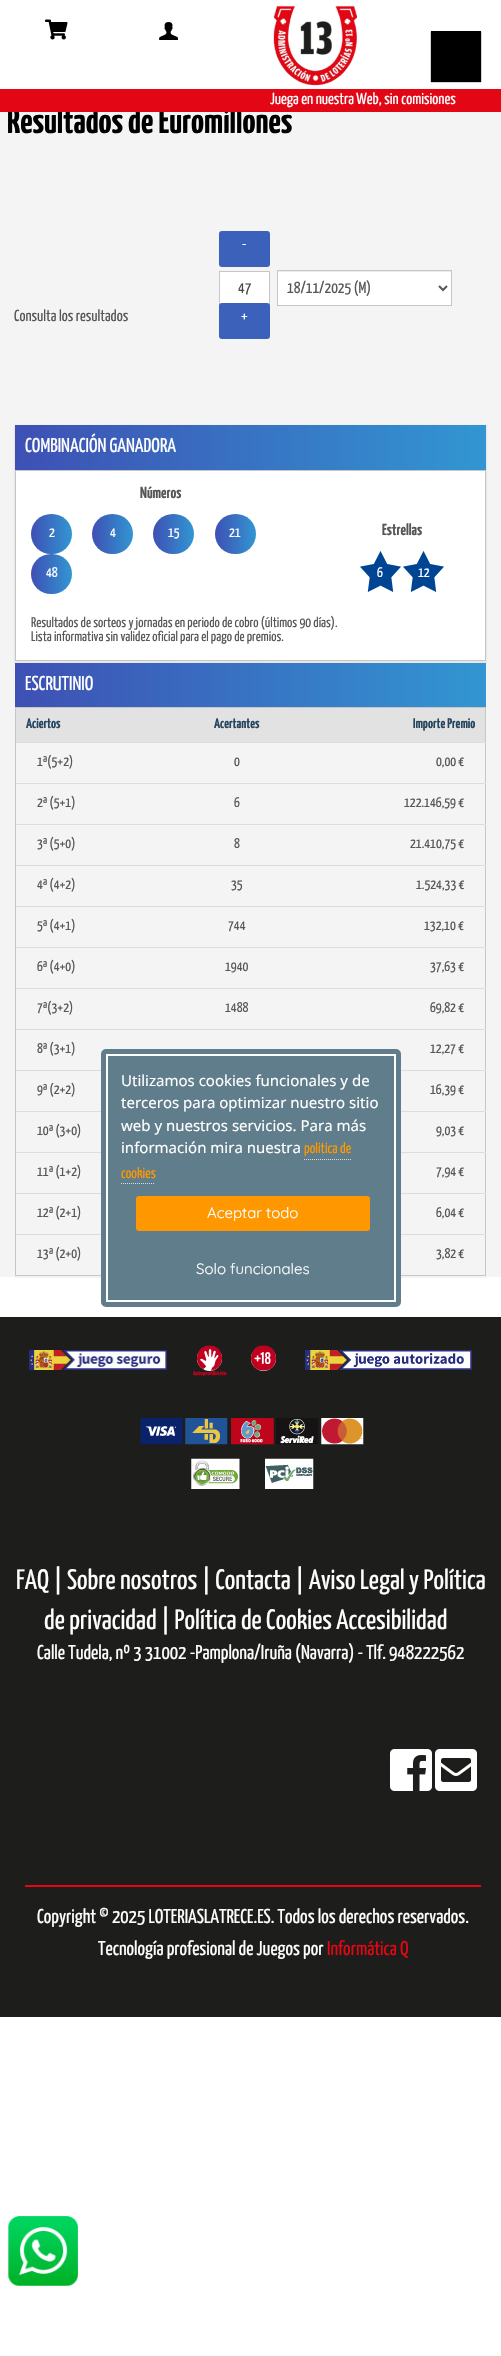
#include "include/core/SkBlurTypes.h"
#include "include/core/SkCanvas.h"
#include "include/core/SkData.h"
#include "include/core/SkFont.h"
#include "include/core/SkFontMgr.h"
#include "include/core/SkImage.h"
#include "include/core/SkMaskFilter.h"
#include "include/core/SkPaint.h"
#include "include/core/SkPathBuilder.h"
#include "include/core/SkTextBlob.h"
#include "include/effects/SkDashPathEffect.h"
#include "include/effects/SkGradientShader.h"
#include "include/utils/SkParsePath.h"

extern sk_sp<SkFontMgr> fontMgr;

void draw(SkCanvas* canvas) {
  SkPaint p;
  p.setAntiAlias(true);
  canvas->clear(SK_ColorWHITE);
  p.setColor(SkColorSetRGB(244, 244, 244));
  canvas->drawRect(SkRect::MakeLTRB(0, 112, 501, 1277), p);
  canvas->drawImageRect(SkImages::DeferredFromEncodedData(SkData::MakeFromFileName("images/1.png")), SkRect::MakeLTRB(273, 5, 358, 86), SkSamplingOptions());
  canvas->drawImageRect(SkImages::DeferredFromEncodedData(SkData::MakeFromFileName("images/2.png")), SkRect::MakeLTRB(8, 2216, 78, 2286), SkSamplingOptions());
  canvas->drawImageRect(SkImages::DeferredFromEncodedData(SkData::MakeFromFileName("images/3.png")), SkRect::MakeLTRB(45, 19, 68, 40), SkSamplingOptions());
  canvas->drawImageRect(SkImages::DeferredFromEncodedData(SkData::MakeFromFileName("images/4.png")), SkRect::MakeLTRB(159, 22, 178, 40), SkSamplingOptions());
  p.setColor(SK_ColorBLACK);
  p.setMaskFilter(SkMaskFilter::MakeBlur(kNormal_SkBlurStyle, 0.5f));
  canvas->drawRect(SkRect::MakeLTRB(431, 32, 481, 82), p);
  p.setMaskFilter(nullptr);
  canvas->drawRect(SkRect::MakeLTRB(431, 31, 481, 81), p);
  p.setColor(SkColorSetRGB(59, 97, 187));
  canvas->drawRoundRect(SkRect::MakeLTRB(219, 231, 270, 267), 3, 3, p);
  p.setColor(SK_ColorWHITE);
  canvas->drawRect(SkRect::MakeLTRB(220, 272, 269, 304), p);
  p.setStyle(SkPaint::kStroke_Style);
  p.setStrokeWidth(1);
  p.setColor(SkColorSetRGB(198, 198, 198));
  canvas->drawRect(SkRect::MakeLTRB(219.5f, 271.5f, 269.5f, 306.5f), p);
  p.setStyle(SkPaint::kFill_Style);
  p.setColor(SkColorSetRGB(59, 97, 187));
  canvas->drawRoundRect(SkRect::MakeLTRB(219, 303, 270, 339), 3, 3, p);
  p.setColor(SK_ColorWHITE);
  canvas->drawRect(SkRect::MakeLTRB(278, 272, 451, 305), p);
  p.setColor(SkColorSetRGB(236, 236, 236));
  canvas->drawRect(SkRect::MakeLTRB(278, 271, 451, 272), p);
  p.setStyle(SkPaint::kStroke_Style);
  p.setColor(SkColorSetRGB(198, 198, 198));
  canvas->drawRect(SkRect::MakeLTRB(277.5f, 270.5f, 451.5f, 305.5f), p);
  p.setStrokeWidth(2);
  p.setColor(SkColorSetRGB(87, 87, 86));
  canvas->drawPath(SkPathBuilder().moveTo(439, 286).lineTo(443, 290).lineTo(447, 286).detach(), p);
  p.setStyle(SkPaint::kFill_Style);
  p.setColor(SkColorSetARGB(13, 0, 0, 0));
  p.setMaskFilter(SkMaskFilter::MakeBlur(kNormal_SkBlurStyle, 0.5f));
  canvas->drawRect(SkRect::MakeLTRB(14, 425, 487, 663), p);
  p.setMaskFilter(nullptr);
  {
    const SkColor colors[] = {SkColorSetRGB(62, 80, 180), SkColorSetRGB(50, 150, 210)};
    const float stops[] = {0, 1};
    const SkPoint ends[] = {{15, 448}, {486, 448}};
    p.setShader(SkGradientShader::MakeLinear(ends, colors, stops, 2, SkTileMode::kClamp));
    p.setAlpha(255);
  }
  canvas->drawRect(SkRect::MakeLTRB(15, 425, 486, 470), p);
  p.setShader(nullptr);
  p.setColor(SK_ColorWHITE);
  canvas->drawRect(SkRect::MakeLTRB(15.5f, 470.5f, 485.5f, 660.5f), p);
  p.setStyle(SkPaint::kStroke_Style);
  p.setStrokeWidth(1);
  p.setColor(SkColorSetRGB(198, 198, 198));
  canvas->drawRect(SkRect::MakeLTRB(15.5f, 470.5f, 485.5f, 660.5f), p);
  p.setStyle(SkPaint::kFill_Style);
  {
    const SkColor colors[] = {SkColorSetRGB(62, 80, 180), SkColorSetRGB(50, 150, 210)};
    const float stops[] = {0, 1};
    const SkPoint ends[] = {{31, 534}, {72, 534}};
    p.setShader(SkGradientShader::MakeLinear(ends, colors, stops, 2, SkTileMode::kClamp));
    p.setAlpha(255);
  }
  canvas->drawRoundRect(SkRect::MakeLTRB(31, 514, 72, 554), 20, 20, p);
  {
    const SkColor colors[] = {SkColorSetRGB(62, 80, 180), SkColorSetRGB(50, 150, 210)};
    const float stops[] = {0, 1};
    const SkPoint ends[] = {{92, 534}, {133, 534}};
    p.setShader(SkGradientShader::MakeLinear(ends, colors, stops, 2, SkTileMode::kClamp));
    p.setAlpha(255);
  }
  canvas->drawRoundRect(SkRect::MakeLTRB(92, 514, 133, 554), 20, 20, p);
  {
    const SkColor colors[] = {SkColorSetRGB(62, 80, 180), SkColorSetRGB(50, 150, 210)};
    const float stops[] = {0, 1};
    const SkPoint ends[] = {{153, 534}, {194, 534}};
    p.setShader(SkGradientShader::MakeLinear(ends, colors, stops, 2, SkTileMode::kClamp));
    p.setAlpha(255);
  }
  canvas->drawRoundRect(SkRect::MakeLTRB(153, 514, 194, 554), 20, 20, p);
  {
    const SkColor colors[] = {SkColorSetRGB(62, 80, 180), SkColorSetRGB(50, 150, 210)};
    const float stops[] = {0, 1};
    const SkPoint ends[] = {{215, 534}, {256, 534}};
    p.setShader(SkGradientShader::MakeLinear(ends, colors, stops, 2, SkTileMode::kClamp));
    p.setAlpha(255);
  }
  canvas->drawRoundRect(SkRect::MakeLTRB(215, 514, 256, 554), 20, 20, p);
  {
    const SkColor colors[] = {SkColorSetRGB(62, 80, 180), SkColorSetRGB(50, 150, 210)};
    const float stops[] = {0, 1};
    const SkPoint ends[] = {{31, 574}, {72, 574}};
    p.setShader(SkGradientShader::MakeLinear(ends, colors, stops, 2, SkTileMode::kClamp));
    p.setAlpha(255);
  }
  canvas->drawRoundRect(SkRect::MakeLTRB(31, 554, 72, 594), 20, 20, p);
  canvas->drawImageRect(SkImages::DeferredFromEncodedData(SkData::MakeFromFileName("images/5.png")), SkRect::MakeLTRB(360, 551, 401, 592), SkSamplingOptions());
  canvas->drawImageRect(SkImages::DeferredFromEncodedData(SkData::MakeFromFileName("images/5.png")), SkRect::MakeLTRB(403, 551, 444, 592), SkSamplingOptions());
  canvas->save();
  canvas->clipRect(SkRect::MakeLTRB(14, 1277, 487, 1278));
  p.setShader(nullptr);
  p.setColor(SkColorSetARGB(13, 0, 0, 0));
  p.setMaskFilter(SkMaskFilter::MakeBlur(kNormal_SkBlurStyle, 0.5f));
  canvas->drawRect(SkRect::MakeLTRB(14, 663, 487, 1278), p);
  p.setMaskFilter(nullptr);
  canvas->restore();
  {
    const SkColor colors[] = {SkColorSetRGB(62, 80, 180), SkColorSetRGB(50, 150, 210)};
    const float stops[] = {0, 1};
    const SkPoint ends[] = {{15, 685}, {486, 685}};
    p.setShader(SkGradientShader::MakeLinear(ends, colors, stops, 2, SkTileMode::kClamp));
    p.setAlpha(255);
  }
  canvas->drawRect(SkRect::MakeLTRB(15, 663, 486, 707), p);
  p.setStyle(SkPaint::kStroke_Style);
  p.setShader(nullptr);
  p.setColor(SkColorSetRGB(198, 198, 198));
  canvas->drawRect(SkRect::MakeLTRB(15.5f, 707.5f, 485.5f, 1275.5f), p);
  p.setStyle(SkPaint::kFill_Style);
  p.setColor(SkColorSetRGB(226, 226, 226));
  canvas->drawRect(SkRect::MakeLTRB(16, 708, 485, 742), p);
  p.setColor(SkColorSetRGB(218, 222, 225));
  canvas->drawRect(SkRect::MakeLTRB(16, 742, 486, 743), p);
  canvas->drawRect(SkRect::MakeLTRB(16, 783, 486, 784), p);
  canvas->drawRect(SkRect::MakeLTRB(16, 824, 486, 825), p);
  canvas->drawRect(SkRect::MakeLTRB(16, 865, 486, 866), p);
  canvas->drawRect(SkRect::MakeLTRB(16, 906, 486, 907), p);
  canvas->drawRect(SkRect::MakeLTRB(16, 947, 486, 948), p);
  canvas->drawRect(SkRect::MakeLTRB(16, 988, 486, 989), p);
  canvas->drawRect(SkRect::MakeLTRB(16, 1029, 486, 1030), p);
  canvas->drawRect(SkRect::MakeLTRB(16, 1070, 101, 1071), p);
  canvas->drawRect(SkRect::MakeLTRB(401, 1070, 486, 1071), p);
  canvas->drawRect(SkRect::MakeLTRB(16, 1111, 101, 1112), p);
  canvas->drawRect(SkRect::MakeLTRB(401, 1111, 486, 1112), p);
  canvas->drawRect(SkRect::MakeLTRB(16, 1152, 101, 1153), p);
  canvas->drawRect(SkRect::MakeLTRB(401, 1152, 486, 1153), p);
  canvas->drawRect(SkRect::MakeLTRB(16, 1193, 101, 1194), p);
  canvas->drawRect(SkRect::MakeLTRB(401, 1193, 486, 1194), p);
  canvas->drawRect(SkRect::MakeLTRB(16, 1234, 101, 1235), p);
  canvas->drawRect(SkRect::MakeLTRB(401, 1234, 486, 1235), p);
  p.setColor(SkColorSetRGB(96, 125, 139));
  canvas->drawRoundRect(SkRect::MakeLTRB(104.5f, 1052.5f, 397.5f, 1303.5f), 1.5f, 1.5f, p);
  p.setStyle(SkPaint::kStroke_Style);
  p.setStrokeWidth(7);
  p.setColor(SK_ColorWHITE);
  canvas->drawRoundRect(SkRect::MakeLTRB(104.5f, 1052.5f, 397.5f, 1303.5f), 1.5f, 1.5f, p);
  p.setStrokeWidth(5);
  p.setColor(SkColorSetRGB(96, 125, 139));
  canvas->drawRoundRect(SkRect::MakeLTRB(103.5f, 1051.5f, 398.5f, 1304.5f), 2.5f, 2.5f, p);
  p.setStrokeWidth(1);
  p.setColor(SkColorSetRGB(215, 223, 226));
  p.setPathEffect(SkDashPathEffect::Make({{1, 1}}, 0));
  canvas->drawPath(SkPathBuilder().moveTo(304, 1159.5f).lineTo(351, 1159.5f).detach(), p);
  p.setPathEffect(nullptr);
  p.setPathEffect(SkDashPathEffect::Make({{1, 1}}, 0));
  canvas->drawPath(SkPathBuilder().moveTo(121, 1183.5f).lineTo(155, 1183.5f).detach(), p);
  p.setPathEffect(nullptr);
  p.setStyle(SkPaint::kFill_Style);
  p.setColor(SkColorSetRGB(255, 152, 0));
  canvas->drawRoundRect(SkRect::MakeLTRB(136, 1196, 370, 1231), 3, 3, p);
  p.setColor(SkColorSetRGB(29, 29, 27));
  canvas->drawRect(SkRect::MakeLTRB(0, 1317, 501, 2017), p);
  canvas->drawImageRect(SkImages::DeferredFromEncodedData(SkData::MakeFromFileName("images/6.png")), SkRect::MakeLTRB(29, 1350, 167, 1370), SkSamplingOptions());
  p.setColor(SK_ColorWHITE);
  canvas->drawCircle(209.5f, 1358.5f, 12.5f, p);
  canvas->drawImageRect(SkImages::DeferredFromEncodedData(SkData::MakeFromFileName("images/7.png")), SkRect::MakeLTRB(197, 1345, 222, 1371), SkSamplingOptions());
  canvas->drawImageRect(SkImages::DeferredFromEncodedData(SkData::MakeFromFileName("images/8.png")), SkRect::MakeLTRB(193, 1370, 227, 1377), SkSamplingOptions());
  canvas->drawCircle(263.5f, 1358.5f, 12.5f, p);
  canvas->drawImageRect(SkImages::DeferredFromEncodedData(SkData::MakeFromFileName("images/9.png")), SkRect::MakeLTRB(251, 1345, 276, 1371), SkSamplingOptions());
  canvas->drawImageRect(SkImages::DeferredFromEncodedData(SkData::MakeFromFileName("images/10.png")), SkRect::MakeLTRB(305, 1350, 472, 1370), SkSamplingOptions());
  canvas->drawImageRect(SkImages::DeferredFromEncodedData(SkData::MakeFromFileName("images/11.png")), SkRect::MakeLTRB(140, 1418, 364, 1489), SkSamplingOptions());
  canvas->drawImageRect(SkImages::DeferredFromEncodedData(SkData::MakeFromFileName("images/12.png")), SkRect::MakeLTRB(390, 1749, 432, 1791), SkSamplingOptions());
  canvas->drawImageRect(SkImages::DeferredFromEncodedData(SkData::MakeFromFileName("images/13.png")), SkRect::MakeLTRB(435, 1749, 477, 1791), SkSamplingOptions());
  p.setColor(SkColorSetRGB(227, 6, 20));
  canvas->drawRect(SkRect::MakeLTRB(25, 1885, 481, 1887), p);
  SkFont font1(fontMgr->matchFamilyStyle("Yanone Kaffeesatz", SkFontStyle::Bold()), 36);
  font1.setSubpixel(true);
  p.setColor(SK_ColorBLACK);
  canvas->drawString("Resultados de Euromillones", 7, 133, font1, p);
  p.setColor(SkColorSetRGB(227, 6, 20));
  canvas->drawRect(SkRect::MakeLTRB(0, 89, 501, 112), p);
  SkFont font2(fontMgr->matchFamilyStyle("Yanone Kaffeesatz", SkFontStyle::Normal()), 16);
  font2.setSubpixel(true);
  p.setColor(SK_ColorWHITE);
  canvas->drawString("Juega en nuestra Web, sin comisiones", 270, 104, font2, p);
  p.setColor(SkColorSetRGB(87, 87, 86));
  canvas->drawString("Consulta los resultados", 14, 321, font2, p);
  p.setColor(SK_ColorWHITE);
  canvas->drawString("-", 242, 249, font2, p);
  p.setColor(SkColorSetRGB(74, 74, 73));
  canvas->drawString("47", 238, 293, font2, p);
  p.setColor(SK_ColorWHITE);
  canvas->drawString("+", 241, 321, font2, p);
  p.setColor(SkColorSetRGB(87, 87, 86));
  canvas->drawString("18/11/2025 (M)", 287, 293, font2, p);
  SkFont font3(fontMgr->matchFamilyStyle("Yanone Kaffeesatz", SkFontStyle::Normal()), 20);
  font3.setSubpixel(true);
  p.setColor(SK_ColorWHITE);
  canvas->drawString("COMBINACIÓN GANADORA", 25, 452, font3, p);
  SkFont font4(fontMgr->matchFamilyStyle("Yanone Kaffeesatz", SkFontStyle::Bold()), 16);
  font4.setSubpixel(true);
  p.setColor(SkColorSetRGB(87, 87, 86));
  canvas->drawString("Números", 140, 498, font4, p);
  SkFont font5(fontMgr->matchFamilyStyle("Yanone Kaffeesatz", SkFontStyle::Normal()), 14);
  font5.setSubpixel(true);
  p.setColor(SK_ColorWHITE);
  canvas->drawString("2", 49, 537, font5, p);
  canvas->drawString("4", 110, 537, font5, p);
  canvas->drawString("15", 168, 537, font5, p);
  canvas->drawString("21", 229, 537, font5, p);
  canvas->drawString("48", 46, 577, font5, p);
  p.setColor(SkColorSetRGB(87, 87, 86));
  canvas->drawString("Estrellas", 382, 535, font4, p);
  p.setColor(SK_ColorWHITE);
  canvas->drawString("6", 377, 577, font5, p);
  canvas->drawString("12", 418, 577, font5, p);
  p.setColor(SkColorSetRGB(87, 87, 86));
  canvas->drawString("Resultados de sorteos y jornadas en periodo de cobro (últimos 90 días).", 31, 627, font5, p);
  canvas->drawString("Lista informativa sin validez oficial para el pago de premios.", 31, 641, font5, p);
  p.setColor(SK_ColorWHITE);
  canvas->drawString("ESCRUTINIO", 25, 690, font3, p);
  SkFont font6(fontMgr->matchFamilyStyle("Yanone Kaffeesatz", SkFontStyle::Bold()), 14);
  font6.setSubpixel(true);
  p.setColor(SkColorSetRGB(38, 69, 95));
  canvas->drawString("Aciertos", 26, 728, font6, p);
  canvas->drawString("Acertantes", 214, 728, font6, p);
  canvas->drawString("Importe Premio", 413, 728, font6, p);
  p.setColor(SkColorSetRGB(87, 87, 86));
  canvas->drawString("1ª(5+2)", 37, 766, font5, p);
  canvas->drawString("0", 234, 766, font5, p);
  canvas->drawString("0,00 €", 436, 766, font5, p);
  canvas->drawString("2ª (5+1)", 37, 807, font5, p);
  canvas->drawString("6", 234, 807, font5, p);
  canvas->drawString("122.146,59 €", 404, 807, font5, p);
  canvas->drawString("3ª (5+0)", 37, 848, font5, p);
  canvas->drawString("8", 234, 848, font5, p);
  canvas->drawString("21.410,75 €", 410, 848, font5, p);
  canvas->drawString("4ª (4+2)", 37, 889, font5, p);
  canvas->drawString("35", 231, 889, font5, p);
  canvas->drawString("1.524,33 €", 416, 889, font5, p);
  canvas->drawString("5ª (4+1)", 37, 930, font5, p);
  canvas->drawString("744", 228, 930, font5, p);
  canvas->drawString("132,10 €", 424, 930, font5, p);
  canvas->drawString("6ª (4+0)", 37, 971, font5, p);
  canvas->drawString("1940", 225, 971, font5, p);
  canvas->drawString("37,63 €", 430, 971, font5, p);
  canvas->drawString("7ª(3+2)", 37, 1012, font5, p);
  canvas->drawString("1488", 225, 1012, font5, p);
  canvas->drawString("69,82 €", 430, 1012, font5, p);
  canvas->drawString("8ª (3+1)", 37, 1053, font5, p);
  canvas->drawString("12,27 €", 430, 1053, font5, p);
  canvas->drawString("9ª (2+2)", 37, 1094, font5, p);
  canvas->drawString("16,39 €", 430, 1094, font5, p);
  canvas->drawString("10ª (3+0)", 37, 1135, font5, p);
  canvas->drawString("9,03 €", 436, 1135, font5, p);
  canvas->drawString("11ª (1+2)", 37, 1176, font5, p);
  canvas->drawString("7,94 €", 436, 1176, font5, p);
  canvas->drawString("12ª (2+1)", 37, 1217, font5, p);
  canvas->drawString("6,04 €", 436, 1217, font5, p);
  canvas->drawString("13ª (2+0)", 37, 1258, font5, p);
  canvas->drawString("3,82 €", 436, 1258, font5, p);
  SkFont font7(fontMgr->matchFamilyStyle("Noto Sans", SkFontStyle::Normal()), 15);
  font7.setSubpixel(true);
  p.setColor(SK_ColorWHITE);
  canvas->drawString("Utilizamos cookies funcionales y de", 121, 1086, font7, p);
  canvas->drawString("terceros para optimizar nuestro sitio", 121, 1108, font7, p);
  canvas->drawString("web y nuestros servicios. Para más", 121, 1131, font7, p);
  canvas->drawString("información mira nuestra", 121, 1153, font7, p);
  SkFont font8(fontMgr->matchFamilyStyle("Yanone Kaffeesatz", SkFontStyle::Normal()), 15);
  font8.setSubpixel(true);
  p.setColor(SkColorSetRGB(255, 152, 0));
  canvas->drawString("politica de", 304, 1153, font8, p);
  canvas->drawString("cookies", 121, 1178, font8, p);
  SkFont font9(fontMgr->matchFamilyStyle("Quicksand", SkFontStyle::Normal()), 15);
  font9.setSubpixel(true);
  p.setColor(SK_ColorWHITE);
  canvas->drawString("Aceptar todo", 207, 1218, font9, p);
  canvas->drawString("Solo funcionales", 196, 1274, font9, p);
  SkFont font10(fontMgr->matchFamilyStyle("Yanone Kaffeesatz", SkFontStyle::Normal()), 28);
  font10.setSubpixel(true);
  canvas->drawString("FAQ | Sobre nosotros | Contacta | Aviso Legal y Política", 16, 1589, font10, p);
  canvas->drawString("de privacidad | Política de Cookies Accesibilidad", 44, 1629, font10, p);
  canvas->drawString("Calle Tudela, nº 3 31002 -Pamplona/Iruña (Navarra) - Tlf. 948222562", 37, 1659, font3, p);
  canvas->drawString("Copyright © 2025 LOTERIASLATRECE.ES. Todos los derechos reservados.", 37, 1923, font3, p);
  canvas->drawString("Tecnología profesional de Juegos por", 98, 1955, font3, p);
  p.setColor(SkColorSetRGB(227, 6, 20));
  canvas->drawString("Informática Q", 327, 1955, font3, p);
}
